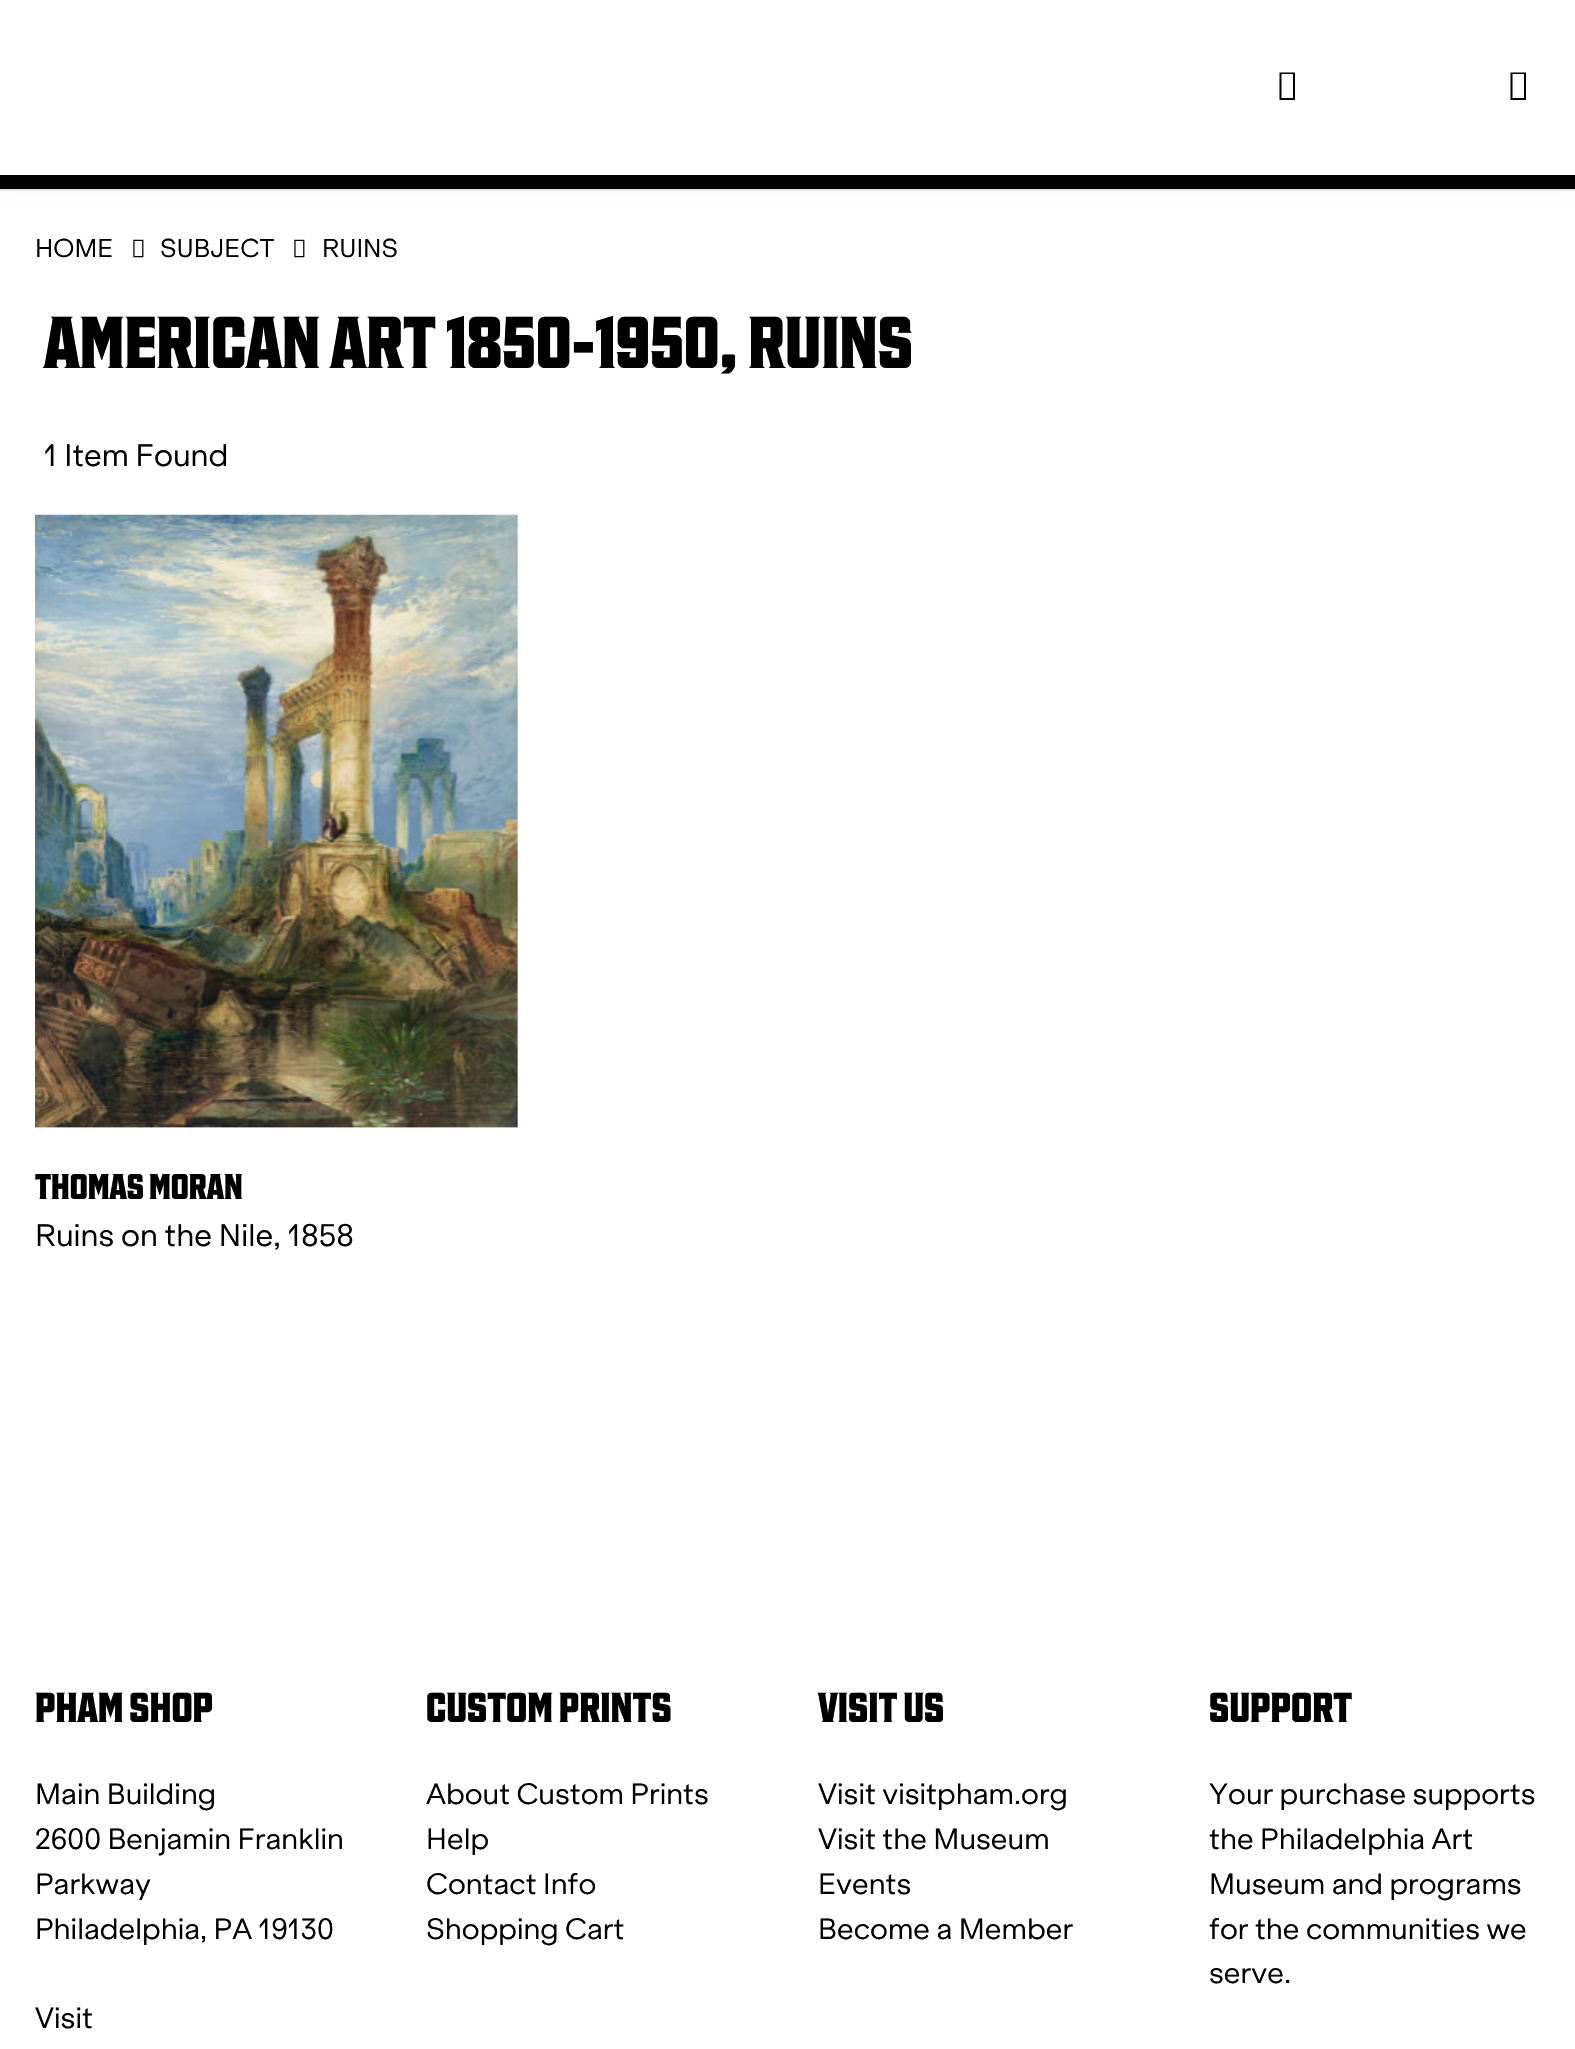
#include "include/core/SkBlurTypes.h"
#include "include/core/SkCanvas.h"
#include "include/core/SkData.h"
#include "include/core/SkFont.h"
#include "include/core/SkFontMgr.h"
#include "include/core/SkImage.h"
#include "include/core/SkMaskFilter.h"
#include "include/core/SkPaint.h"
#include "include/core/SkPathBuilder.h"
#include "include/core/SkTextBlob.h"
#include "include/effects/SkDashPathEffect.h"
#include "include/effects/SkGradientShader.h"
#include "include/utils/SkParsePath.h"

extern sk_sp<SkFontMgr> fontMgr;

void draw(SkCanvas* canvas) {
  SkPaint p;
  p.setAntiAlias(true);
  canvas->clear(SK_ColorWHITE);
  p.setColor(SK_ColorBLACK);
  canvas->drawRect(SkRect::MakeLTRB(0, 175, 1575, 189), p);
  p.setColor(SkColorSetRGB(232, 232, 232));
  canvas->drawRect(SkRect::MakeLTRB(0, 189, 1575, 191), p);
  p.setColor(SkColorSetARGB(64, 0, 0, 0));
  p.setMaskFilter(SkMaskFilter::MakeBlur(kNormal_SkBlurStyle, 9));
  canvas->drawRect(SkRect::MakeLTRB(0, 0, 1575, 175), p);
  p.setMaskFilter(nullptr);
  p.setColor(SK_ColorWHITE);
  canvas->drawRect(SkRect::MakeLTRB(0, 0, 1575, 175), p);
  p.setColor(SK_ColorBLACK);
  canvas->drawPath(SkPathBuilder().moveTo(1279.5f, 100).lineTo(1279.5f, 72.5f).lineTo(1295, 72.5f).lineTo(1295, 100).close().moveTo(1281.5f, 98).lineTo(1293, 98).lineTo(1293, 74).lineTo(1281.5f, 74).close().detach(), p);
  canvas->drawPath(SkPathBuilder().moveTo(1510.5f, 100).lineTo(1510.5f, 72.5f).lineTo(1526, 72.5f).lineTo(1526, 100).close().moveTo(1512.5f, 98).lineTo(1524, 98).lineTo(1524, 74).lineTo(1512.5f, 74).close().detach(), p);
  canvas->drawImageRect(SkImages::DeferredFromEncodedData(SkData::MakeFromFileName("images/1.png")), SkRect::MakeLTRB(133, 239, 144, 258), SkSamplingOptions());
  canvas->drawImageRect(SkImages::DeferredFromEncodedData(SkData::MakeFromFileName("images/1.png")), SkRect::MakeLTRB(294, 239, 305, 258), SkSamplingOptions());
  canvas->drawImageRect(SkImages::DeferredFromEncodedData(SkData::MakeFromFileName("images/2.png")), SkRect::MakeLTRB(35, 514, 518, 1128), SkSamplingOptions());
  SkFont font1(fontMgr->matchFamilyStyle("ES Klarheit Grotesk", SkFontStyle::Normal()), 24.5f);
  font1.setSubpixel(true);
  canvas->drawString("HOME", 35, 257, font1, p);
  canvas->drawString("SUBJECT", 160, 257, font1, p);
  canvas->drawString("RUINS", 322, 257, font1, p);
  SkFont font2(fontMgr->matchFamilyStyle("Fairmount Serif", SkFontStyle::Bold()), 61.25f);
  font2.setSubpixel(true);
  canvas->drawString("AMERICAN ART 1850-1950, RUINS", 44, 368, font2, p);
  SkFont font3(fontMgr->matchFamilyStyle("ES Klarheit Grotesk", SkFontStyle::Normal()), 29.75f);
  font3.setSubpixel(true);
  canvas->drawString("1 Item Found", 44, 466, font3, p);
  SkFont font4(fontMgr->matchFamilyStyle("Fairmount Serif", SkFontStyle::Bold()), 29.75f);
  font4.setSubpixel(true);
  canvas->drawString("THOMAS MORAN", 35, 1199, font4, p);
  canvas->drawString("Ruins on the Nile, 1858", 35, 1246, font3, p);
  SkFont font5(fontMgr->matchFamilyStyle("Fairmount Serif", SkFontStyle::Bold()), 35);
  font5.setSubpixel(true);
  canvas->drawString("PHAM SHOP", 35, 1722, font5, p);
  SkFont font6(fontMgr->matchFamilyStyle("ES Klarheit Grotesk", SkFontStyle::Normal()), 28);
  font6.setSubpixel(true);
  canvas->drawString("Main Building", 35, 1804, font6, p);
  canvas->drawString("2600 Benjamin Franklin", 35, 1849, font6, p);
  canvas->drawString("Parkway", 35, 1894, font6, p);
  canvas->drawString("Philadelphia, PA 19130", 35, 1939, font6, p);
  canvas->drawString("Visit", 35, 2028, font6, p);
  canvas->drawString("CUSTOM PRINTS", 426, 1722, font5, p);
  canvas->drawString("About Custom Prints", 426, 1804, font6, p);
  canvas->drawString("Help", 426, 1849, font6, p);
  canvas->drawString("Contact Info", 426, 1894, font6, p);
  canvas->drawString("Shopping Cart", 426, 1939, font6, p);
  canvas->drawString("VISIT US", 818, 1722, font5, p);
  canvas->drawString("Visit visitpham.org", 818, 1804, font6, p);
  canvas->drawString("Visit the Museum", 818, 1849, font6, p);
  canvas->drawString("Events", 818, 1894, font6, p);
  canvas->drawString("Become a Member", 818, 1939, font6, p);
  canvas->drawString("SUPPORT", 1209, 1722, font5, p);
  canvas->drawString("Your purchase supports", 1209, 1804, font6, p);
  canvas->drawString("the Philadelphia Art", 1209, 1849, font6, p);
  canvas->drawString("Museum and programs", 1209, 1894, font6, p);
  canvas->drawString("for the communities we", 1209, 1939, font6, p);
  canvas->drawString("serve.", 1209, 1983, font6, p);
}
